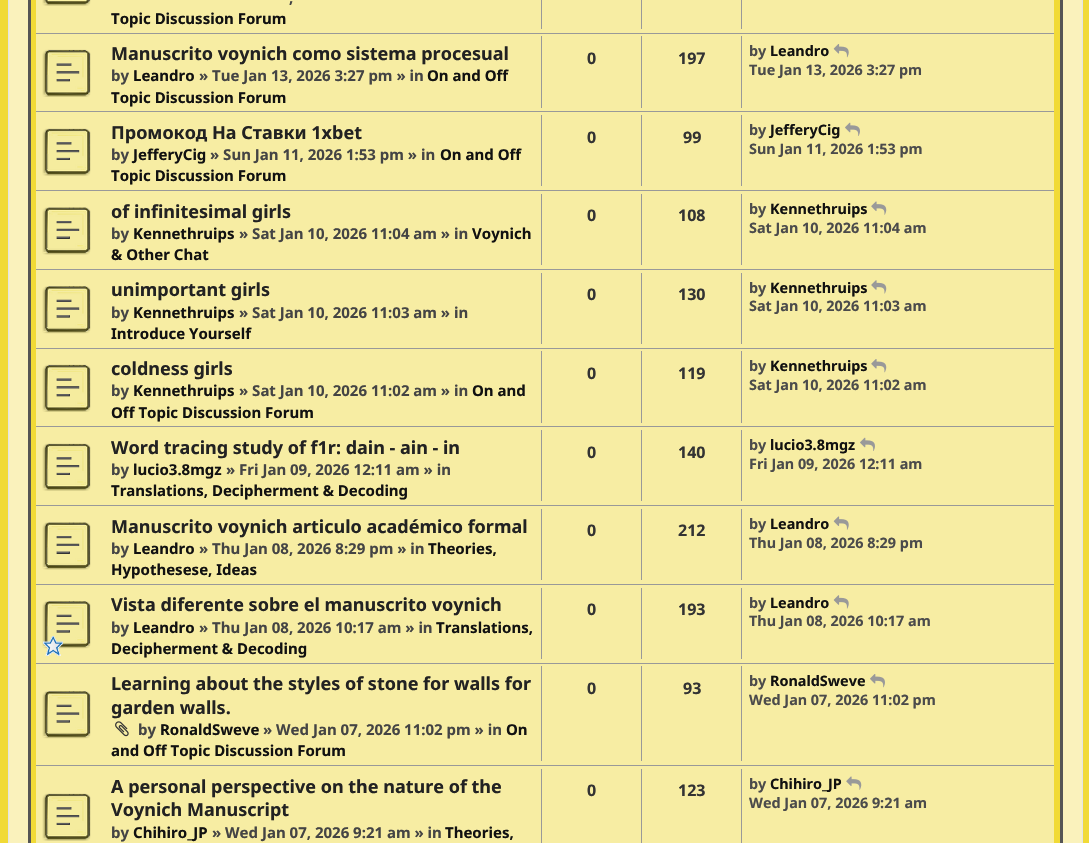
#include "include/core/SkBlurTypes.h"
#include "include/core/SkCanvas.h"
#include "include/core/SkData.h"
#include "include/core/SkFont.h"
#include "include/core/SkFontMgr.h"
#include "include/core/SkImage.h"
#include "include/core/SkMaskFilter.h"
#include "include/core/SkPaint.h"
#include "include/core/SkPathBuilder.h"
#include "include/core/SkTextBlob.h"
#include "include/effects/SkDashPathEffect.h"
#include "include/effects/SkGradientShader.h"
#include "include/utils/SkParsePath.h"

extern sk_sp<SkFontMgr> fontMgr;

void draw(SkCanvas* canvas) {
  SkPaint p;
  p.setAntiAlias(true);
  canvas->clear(SK_ColorWHITE);
  {
    const SkColor colors[] = {SkColorSetRGB(249, 243, 192), SkColorSetRGB(247, 238, 175), SkColorSetRGB(241, 218, 54), SkColorSetRGB(241, 218, 54)};
    const float stops[] = {0, 0, 0.04f, 1};
    const SkPoint ends[] = {{545, -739}, {545, 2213}};
    p.setShader(SkGradientShader::MakeLinear(ends, colors, stops, 4, SkTileMode::kClamp));
    p.setAlpha(255);
  }
  canvas->drawRect(SkRect::MakeLTRB(0, 0, 1089, 843), p);
  p.setShader(nullptr);
  p.setColor(SkColorSetRGB(250, 242, 188));
  canvas->drawRect(SkRect::MakeLTRB(8.5f, -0.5f, 1082.5f, 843.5f), p);
  p.setStyle(SkPaint::kStroke_Style);
  p.setStrokeWidth(1);
  p.setColor(SkColorSetRGB(228, 228, 228));
  canvas->drawRect(SkRect::MakeLTRB(8.5f, -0.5f, 1082.5f, 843.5f), p);
  p.setStyle(SkPaint::kFill_Style);
  {
    const SkColor colors[] = {SkColorSetRGB(252, 247, 207), SkColorSetRGB(249, 243, 194), SkColorSetRGB(241, 218, 54), SkColorSetRGB(241, 218, 54)};
    const float stops[] = {0, 0, 0.05f, 1};
    const SkPoint ends[] = {{545, -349}, {545, 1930}};
    p.setShader(SkGradientShader::MakeLinear(ends, colors, stops, 4, SkTileMode::kClamp));
    p.setAlpha(255);
  }
  canvas->drawRect(SkRect::MakeLTRB(31, 0, 1060, 843), p);
  p.setStyle(SkPaint::kStroke_Style);
  p.setStrokeWidth(3);
  p.setShader(nullptr);
  p.setColor(SkColorSetRGB(85, 85, 85));
  canvas->drawRect(SkRect::MakeLTRB(29.5f, -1.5f, 1061.5f, 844.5f), p);
  p.setStyle(SkPaint::kFill_Style);
  p.setColor(SkColorSetRGB(247, 237, 163));
  canvas->drawRect(SkRect::MakeLTRB(36, 0, 1054, 33), p);
  canvas->drawImageRect(SkImages::DeferredFromEncodedData(SkData::MakeFromFileName("images/1.png")), SkRect::MakeLTRB(42, 0, 91, 6), SkSamplingOptions());
  p.setColor(SkColorSetRGB(153, 153, 153));
  canvas->drawRect(SkRect::MakeLTRB(541, 0, 542, 29), p);
  canvas->drawRect(SkRect::MakeLTRB(641, 0, 642, 29), p);
  canvas->drawRect(SkRect::MakeLTRB(741, 0, 742, 29), p);
  p.setColor(SkColorSetRGB(247, 237, 163));
  canvas->drawRect(SkRect::MakeLTRB(36, 34, 1054, 111), p);
  p.setColor(SkColorSetRGB(153, 153, 153));
  canvas->drawRect(SkRect::MakeLTRB(36, 33, 1054, 34), p);
  canvas->drawImageRect(SkImages::DeferredFromEncodedData(SkData::MakeFromFileName("images/2.png")), SkRect::MakeLTRB(42, 49, 91, 97), SkSamplingOptions());
  canvas->drawRect(SkRect::MakeLTRB(541, 36, 542, 108), p);
  canvas->drawRect(SkRect::MakeLTRB(641, 36, 642, 108), p);
  canvas->drawRect(SkRect::MakeLTRB(741, 36, 742, 108), p);
  canvas->drawImageRect(SkImages::DeferredFromEncodedData(SkData::MakeFromFileName("images/3.png")), SkRect::MakeLTRB(833, 44, 849, 58), SkSamplingOptions());
  p.setColor(SkColorSetRGB(247, 237, 163));
  canvas->drawRect(SkRect::MakeLTRB(36, 112, 1054, 190), p);
  p.setColor(SkColorSetRGB(153, 153, 153));
  canvas->drawRect(SkRect::MakeLTRB(36, 111, 1054, 112), p);
  canvas->drawImageRect(SkImages::DeferredFromEncodedData(SkData::MakeFromFileName("images/4.png")), SkRect::MakeLTRB(42, 128, 91, 176), SkSamplingOptions());
  canvas->drawRect(SkRect::MakeLTRB(541, 115, 542, 186), p);
  canvas->drawRect(SkRect::MakeLTRB(641, 115, 642, 186), p);
  canvas->drawRect(SkRect::MakeLTRB(741, 115, 742, 186), p);
  canvas->drawImageRect(SkImages::DeferredFromEncodedData(SkData::MakeFromFileName("images/5.png")), SkRect::MakeLTRB(845, 122, 860, 136), SkSamplingOptions());
  p.setColor(SkColorSetRGB(247, 237, 163));
  canvas->drawRect(SkRect::MakeLTRB(36, 191, 1054, 269), p);
  p.setColor(SkColorSetRGB(153, 153, 153));
  canvas->drawRect(SkRect::MakeLTRB(36, 190, 1054, 191), p);
  canvas->drawImageRect(SkImages::DeferredFromEncodedData(SkData::MakeFromFileName("images/6.png")), SkRect::MakeLTRB(42, 207, 91, 255), SkSamplingOptions());
  canvas->drawRect(SkRect::MakeLTRB(541, 194, 542, 265), p);
  canvas->drawRect(SkRect::MakeLTRB(641, 194, 642, 265), p);
  canvas->drawRect(SkRect::MakeLTRB(741, 194, 742, 265), p);
  canvas->drawImageRect(SkImages::DeferredFromEncodedData(SkData::MakeFromFileName("images/7.png")), SkRect::MakeLTRB(871, 201, 887, 215), SkSamplingOptions());
  p.setColor(SkColorSetRGB(247, 237, 163));
  canvas->drawRect(SkRect::MakeLTRB(36, 270, 1054, 348), p);
  p.setColor(SkColorSetRGB(153, 153, 153));
  canvas->drawRect(SkRect::MakeLTRB(36, 269, 1054, 270), p);
  canvas->drawImageRect(SkImages::DeferredFromEncodedData(SkData::MakeFromFileName("images/8.png")), SkRect::MakeLTRB(42, 286, 91, 334), SkSamplingOptions());
  canvas->drawRect(SkRect::MakeLTRB(541, 273, 542, 344), p);
  canvas->drawRect(SkRect::MakeLTRB(641, 273, 642, 344), p);
  canvas->drawRect(SkRect::MakeLTRB(741, 273, 742, 344), p);
  canvas->drawImageRect(SkImages::DeferredFromEncodedData(SkData::MakeFromFileName("images/9.png")), SkRect::MakeLTRB(871, 280, 887, 294), SkSamplingOptions());
  p.setColor(SkColorSetRGB(247, 237, 163));
  canvas->drawRect(SkRect::MakeLTRB(36, 349, 1054, 426), p);
  p.setColor(SkColorSetRGB(153, 153, 153));
  canvas->drawRect(SkRect::MakeLTRB(36, 348, 1054, 349), p);
  canvas->drawImageRect(SkImages::DeferredFromEncodedData(SkData::MakeFromFileName("images/2.png")), SkRect::MakeLTRB(42, 364, 91, 412), SkSamplingOptions());
  canvas->drawRect(SkRect::MakeLTRB(541, 351, 542, 423), p);
  canvas->drawRect(SkRect::MakeLTRB(641, 351, 642, 423), p);
  canvas->drawRect(SkRect::MakeLTRB(741, 351, 742, 423), p);
  canvas->drawImageRect(SkImages::DeferredFromEncodedData(SkData::MakeFromFileName("images/10.png")), SkRect::MakeLTRB(871, 359, 887, 373), SkSamplingOptions());
  p.setColor(SkColorSetRGB(247, 237, 163));
  canvas->drawRect(SkRect::MakeLTRB(36, 427, 1054, 505), p);
  p.setColor(SkColorSetRGB(153, 153, 153));
  canvas->drawRect(SkRect::MakeLTRB(36, 426, 1054, 427), p);
  canvas->drawImageRect(SkImages::DeferredFromEncodedData(SkData::MakeFromFileName("images/4.png")), SkRect::MakeLTRB(42, 443, 91, 491), SkSamplingOptions());
  canvas->drawRect(SkRect::MakeLTRB(541, 430, 542, 501), p);
  canvas->drawRect(SkRect::MakeLTRB(641, 430, 642, 501), p);
  canvas->drawRect(SkRect::MakeLTRB(741, 430, 742, 501), p);
  canvas->drawImageRect(SkImages::DeferredFromEncodedData(SkData::MakeFromFileName("images/5.png")), SkRect::MakeLTRB(860, 437, 875, 451), SkSamplingOptions());
  p.setColor(SkColorSetRGB(247, 237, 163));
  canvas->drawRect(SkRect::MakeLTRB(36, 506, 1054, 584), p);
  p.setColor(SkColorSetRGB(153, 153, 153));
  canvas->drawRect(SkRect::MakeLTRB(36, 505, 1054, 506), p);
  canvas->drawImageRect(SkImages::DeferredFromEncodedData(SkData::MakeFromFileName("images/6.png")), SkRect::MakeLTRB(42, 522, 91, 570), SkSamplingOptions());
  canvas->drawRect(SkRect::MakeLTRB(541, 509, 542, 580), p);
  canvas->drawRect(SkRect::MakeLTRB(641, 509, 642, 580), p);
  canvas->drawRect(SkRect::MakeLTRB(741, 509, 742, 580), p);
  canvas->drawImageRect(SkImages::DeferredFromEncodedData(SkData::MakeFromFileName("images/11.png")), SkRect::MakeLTRB(833, 516, 849, 530), SkSamplingOptions());
  p.setColor(SkColorSetRGB(247, 237, 163));
  canvas->drawRect(SkRect::MakeLTRB(36, 585, 1054, 663), p);
  p.setColor(SkColorSetRGB(153, 153, 153));
  canvas->drawRect(SkRect::MakeLTRB(36, 584, 1054, 585), p);
  canvas->drawImageRect(SkImages::DeferredFromEncodedData(SkData::MakeFromFileName("images/8.png")), SkRect::MakeLTRB(42, 601, 91, 649), SkSamplingOptions());
  canvas->drawImageRect(SkImages::DeferredFromEncodedData(SkData::MakeFromFileName("images/12.png")), SkRect::MakeLTRB(43, 636, 63, 656), SkSamplingOptions());
  canvas->drawRect(SkRect::MakeLTRB(541, 588, 542, 659), p);
  canvas->drawRect(SkRect::MakeLTRB(641, 588, 642, 659), p);
  canvas->drawRect(SkRect::MakeLTRB(741, 588, 742, 659), p);
  canvas->drawImageRect(SkImages::DeferredFromEncodedData(SkData::MakeFromFileName("images/13.png")), SkRect::MakeLTRB(833, 595, 849, 609), SkSamplingOptions());
  p.setColor(SkColorSetRGB(247, 237, 163));
  canvas->drawRect(SkRect::MakeLTRB(36, 664, 1054, 765), p);
  p.setColor(SkColorSetRGB(153, 153, 153));
  canvas->drawRect(SkRect::MakeLTRB(36, 663, 1054, 664), p);
  canvas->drawImageRect(SkImages::DeferredFromEncodedData(SkData::MakeFromFileName("images/14.png")), SkRect::MakeLTRB(42, 691, 91, 739), SkSamplingOptions());
  canvas->drawImageRect(SkImages::DeferredFromEncodedData(SkData::MakeFromFileName("images/15.png")), SkRect::MakeLTRB(115, 721, 129, 737), SkSamplingOptions());
  canvas->drawRect(SkRect::MakeLTRB(541, 666, 542, 761), p);
  canvas->drawRect(SkRect::MakeLTRB(641, 666, 642, 761), p);
  canvas->drawRect(SkRect::MakeLTRB(741, 666, 742, 761), p);
  canvas->drawImageRect(SkImages::DeferredFromEncodedData(SkData::MakeFromFileName("images/16.png")), SkRect::MakeLTRB(870, 674, 885, 688), SkSamplingOptions());
  p.setColor(SkColorSetRGB(247, 237, 163));
  canvas->drawRect(SkRect::MakeLTRB(36, 766, 1054, 843), p);
  p.setColor(SkColorSetRGB(153, 153, 153));
  canvas->drawRect(SkRect::MakeLTRB(36, 765, 1054, 766), p);
  canvas->drawImageRect(SkImages::DeferredFromEncodedData(SkData::MakeFromFileName("images/4.png")), SkRect::MakeLTRB(42, 793, 91, 841), SkSamplingOptions());
  canvas->drawRect(SkRect::MakeLTRB(541, 769, 542, 843), p);
  canvas->drawRect(SkRect::MakeLTRB(641, 769, 642, 843), p);
  canvas->drawRect(SkRect::MakeLTRB(741, 769, 742, 843), p);
  canvas->drawImageRect(SkImages::DeferredFromEncodedData(SkData::MakeFromFileName("images/7.png")), SkRect::MakeLTRB(846, 776, 862, 790), SkSamplingOptions());
  SkFont font1(fontMgr->matchFamilyStyle("Noto Sans", SkFontStyle::Bold()), 15);
  font1.setSubpixel(true);
  p.setColor(SkColorSetRGB(68, 68, 68));
  canvas->drawString(",", 289, 3, font1, p);
  p.setColor(SkColorSetRGB(17, 17, 17));
  canvas->drawString("Topic Discussion Forum", 111, 24, font1, p);
  SkFont font2(fontMgr->matchFamilyStyle("Noto Sans", SkFontStyle::Bold()), 18);
  font2.setSubpixel(true);
  p.setColor(SkColorSetRGB(34, 34, 34));
  canvas->drawString("Manuscrito voynich como sistema procesual", 111, 60, font2, p);
  p.setColor(SkColorSetRGB(68, 68, 68));
  canvas->drawString("by", 111, 81, font1, p);
  p.setColor(SkColorSetRGB(17, 17, 17));
  canvas->drawString("Leandro", 133, 81, font1, p);
  p.setColor(SkColorSetRGB(68, 68, 68));
  canvas->drawString("» Tue Jan 13, 2026 3:27 pm » in", 199, 81, font1, p);
  p.setColor(SkColorSetRGB(17, 17, 17));
  canvas->drawString("On and Off", 427, 81, font1, p);
  canvas->drawString("Topic Discussion Forum", 111, 103, font1, p);
  SkFont font3(fontMgr->matchFamilyStyle("Noto Sans", SkFontStyle::Bold()), 16);
  font3.setSubpixel(true);
  p.setColor(SkColorSetRGB(51, 51, 51));
  canvas->drawString("0", 587, 64, font3, p);
  canvas->drawString("197", 678, 64, font3, p);
  SkFont font4(fontMgr->matchFamilyStyle("Noto Sans", SkFontStyle::Bold()), 14.4f);
  font4.setSubpixel(true);
  p.setColor(SkColorSetRGB(75, 75, 75));
  canvas->drawString("by", 749, 56, font4, p);
  p.setColor(SkColorSetRGB(17, 17, 17));
  canvas->drawString("Leandro", 770, 56, font4, p);
  p.setColor(SkColorSetRGB(75, 75, 75));
  canvas->drawString("Tue Jan 13, 2026 3:27 pm", 749, 75, font4, p);
  p.setColor(SkColorSetRGB(34, 34, 34));
  canvas->drawString("Промокод На Ставки 1xbet", 111, 139, font2, p);
  p.setColor(SkColorSetRGB(68, 68, 68));
  canvas->drawString("by", 111, 160, font1, p);
  p.setColor(SkColorSetRGB(17, 17, 17));
  canvas->drawString("JefferyCig", 133, 160, font1, p);
  p.setColor(SkColorSetRGB(68, 68, 68));
  canvas->drawString("» Sun Jan 11, 2026 1:53 pm » in", 210, 160, font1, p);
  p.setColor(SkColorSetRGB(17, 17, 17));
  canvas->drawString("On and Off", 440, 160, font1, p);
  canvas->drawString("Topic Discussion Forum", 111, 181, font1, p);
  p.setColor(SkColorSetRGB(51, 51, 51));
  canvas->drawString("0", 587, 143, font3, p);
  canvas->drawString("99", 683, 143, font3, p);
  p.setColor(SkColorSetRGB(75, 75, 75));
  canvas->drawString("by", 749, 135, font4, p);
  p.setColor(SkColorSetRGB(17, 17, 17));
  canvas->drawString("JefferyCig", 770, 135, font4, p);
  p.setColor(SkColorSetRGB(75, 75, 75));
  canvas->drawString("Sun Jan 11, 2026 1:53 pm", 749, 154, font4, p);
  p.setColor(SkColorSetRGB(34, 34, 34));
  canvas->drawString("of infinitesimal girls", 111, 218, font2, p);
  p.setColor(SkColorSetRGB(68, 68, 68));
  canvas->drawString("by", 111, 239, font1, p);
  p.setColor(SkColorSetRGB(17, 17, 17));
  canvas->drawString("Kennethruips", 133, 239, font1, p);
  p.setColor(SkColorSetRGB(68, 68, 68));
  canvas->drawString("» Sat Jan 10, 2026 11:04 am » in", 239, 239, font1, p);
  p.setColor(SkColorSetRGB(17, 17, 17));
  canvas->drawString("Voynich", 472, 239, font1, p);
  canvas->drawString("& Other Chat", 111, 260, font1, p);
  p.setColor(SkColorSetRGB(51, 51, 51));
  canvas->drawString("0", 587, 221, font3, p);
  canvas->drawString("108", 678, 221, font3, p);
  p.setColor(SkColorSetRGB(75, 75, 75));
  canvas->drawString("by", 749, 214, font4, p);
  p.setColor(SkColorSetRGB(17, 17, 17));
  canvas->drawString("Kennethruips", 770, 214, font4, p);
  p.setColor(SkColorSetRGB(75, 75, 75));
  canvas->drawString("Sat Jan 10, 2026 11:04 am", 749, 233, font4, p);
  p.setColor(SkColorSetRGB(34, 34, 34));
  canvas->drawString("unimportant girls", 111, 296, font2, p);
  p.setColor(SkColorSetRGB(68, 68, 68));
  canvas->drawString("by", 111, 318, font1, p);
  p.setColor(SkColorSetRGB(17, 17, 17));
  canvas->drawString("Kennethruips", 133, 318, font1, p);
  p.setColor(SkColorSetRGB(68, 68, 68));
  canvas->drawString("» Sat Jan 10, 2026 11:03 am » in", 239, 318, font1, p);
  p.setColor(SkColorSetRGB(17, 17, 17));
  canvas->drawString("Introduce Yourself", 111, 339, font1, p);
  p.setColor(SkColorSetRGB(51, 51, 51));
  canvas->drawString("0", 587, 300, font3, p);
  canvas->drawString("130", 678, 300, font3, p);
  p.setColor(SkColorSetRGB(75, 75, 75));
  canvas->drawString("by", 749, 293, font4, p);
  p.setColor(SkColorSetRGB(17, 17, 17));
  canvas->drawString("Kennethruips", 770, 293, font4, p);
  p.setColor(SkColorSetRGB(75, 75, 75));
  canvas->drawString("Sat Jan 10, 2026 11:03 am", 749, 311, font4, p);
  p.setColor(SkColorSetRGB(34, 34, 34));
  canvas->drawString("coldness girls", 111, 375, font2, p);
  p.setColor(SkColorSetRGB(68, 68, 68));
  canvas->drawString("by", 111, 396, font1, p);
  p.setColor(SkColorSetRGB(17, 17, 17));
  canvas->drawString("Kennethruips", 133, 396, font1, p);
  p.setColor(SkColorSetRGB(68, 68, 68));
  canvas->drawString("» Sat Jan 10, 2026 11:02 am » in", 239, 396, font1, p);
  p.setColor(SkColorSetRGB(17, 17, 17));
  canvas->drawString("On and", 472, 396, font1, p);
  canvas->drawString("Off Topic Discussion Forum", 111, 418, font1, p);
  p.setColor(SkColorSetRGB(51, 51, 51));
  canvas->drawString("0", 587, 379, font3, p);
  canvas->drawString("119", 678, 379, font3, p);
  p.setColor(SkColorSetRGB(75, 75, 75));
  canvas->drawString("by", 749, 371, font4, p);
  p.setColor(SkColorSetRGB(17, 17, 17));
  canvas->drawString("Kennethruips", 770, 371, font4, p);
  p.setColor(SkColorSetRGB(75, 75, 75));
  canvas->drawString("Sat Jan 10, 2026 11:02 am", 749, 390, font4, p);
  p.setColor(SkColorSetRGB(34, 34, 34));
  canvas->drawString("Word tracing study of f1r: dain - ain - in", 111, 454, font2, p);
  p.setColor(SkColorSetRGB(68, 68, 68));
  canvas->drawString("by", 111, 475, font1, p);
  p.setColor(SkColorSetRGB(17, 17, 17));
  canvas->drawString("lucio3.8mgz", 133, 475, font1, p);
  p.setColor(SkColorSetRGB(68, 68, 68));
  canvas->drawString("» Fri Jan 09, 2026 12:11 am » in", 226, 475, font1, p);
  p.setColor(SkColorSetRGB(17, 17, 17));
  canvas->drawString("Translations, Decipherment & Decoding", 111, 496, font1, p);
  p.setColor(SkColorSetRGB(51, 51, 51));
  canvas->drawString("0", 587, 458, font3, p);
  canvas->drawString("140", 678, 458, font3, p);
  p.setColor(SkColorSetRGB(75, 75, 75));
  canvas->drawString("by", 749, 450, font4, p);
  p.setColor(SkColorSetRGB(17, 17, 17));
  canvas->drawString("lucio3.8mgz", 770, 450, font4, p);
  p.setColor(SkColorSetRGB(75, 75, 75));
  canvas->drawString("Fri Jan 09, 2026 12:11 am", 749, 469, font4, p);
  p.setColor(SkColorSetRGB(34, 34, 34));
  canvas->drawString("Manuscrito voynich articulo académico formal", 111, 533, font2, p);
  p.setColor(SkColorSetRGB(68, 68, 68));
  canvas->drawString("by", 111, 554, font1, p);
  p.setColor(SkColorSetRGB(17, 17, 17));
  canvas->drawString("Leandro", 133, 554, font1, p);
  p.setColor(SkColorSetRGB(68, 68, 68));
  canvas->drawString("» Thu Jan 08, 2026 8:29 pm » in", 199, 554, font1, p);
  p.setColor(SkColorSetRGB(17, 17, 17));
  canvas->drawString("Theories,", 428, 554, font1, p);
  canvas->drawString("Hypothesese, Ideas", 111, 575, font1, p);
  p.setColor(SkColorSetRGB(51, 51, 51));
  canvas->drawString("0", 587, 536, font3, p);
  canvas->drawString("212", 678, 536, font3, p);
  p.setColor(SkColorSetRGB(75, 75, 75));
  canvas->drawString("by", 749, 529, font4, p);
  p.setColor(SkColorSetRGB(17, 17, 17));
  canvas->drawString("Leandro", 770, 529, font4, p);
  p.setColor(SkColorSetRGB(75, 75, 75));
  canvas->drawString("Thu Jan 08, 2026 8:29 pm", 749, 548, font4, p);
  p.setColor(SkColorSetRGB(34, 34, 34));
  canvas->drawString("Vista diferente sobre el manuscrito voynich", 111, 611, font2, p);
  p.setColor(SkColorSetRGB(68, 68, 68));
  canvas->drawString("by", 111, 633, font1, p);
  p.setColor(SkColorSetRGB(17, 17, 17));
  canvas->drawString("Leandro", 133, 633, font1, p);
  p.setColor(SkColorSetRGB(68, 68, 68));
  canvas->drawString("» Thu Jan 08, 2026 10:17 am » in", 199, 633, font1, p);
  p.setColor(SkColorSetRGB(17, 17, 17));
  canvas->drawString("Translations,", 436, 633, font1, p);
  canvas->drawString("Decipherment & Decoding", 111, 654, font1, p);
  p.setColor(SkColorSetRGB(51, 51, 51));
  canvas->drawString("0", 587, 615, font3, p);
  canvas->drawString("193", 678, 615, font3, p);
  p.setColor(SkColorSetRGB(75, 75, 75));
  canvas->drawString("by", 749, 608, font4, p);
  p.setColor(SkColorSetRGB(17, 17, 17));
  canvas->drawString("Leandro", 770, 608, font4, p);
  p.setColor(SkColorSetRGB(75, 75, 75));
  canvas->drawString("Thu Jan 08, 2026 10:17 am", 749, 626, font4, p);
  p.setColor(SkColorSetRGB(34, 34, 34));
  canvas->drawString("Learning about the styles of stone for walls for", 111, 690, font2, p);
  canvas->drawString("garden walls.", 111, 714, font2, p);
  p.setColor(SkColorSetRGB(68, 68, 68));
  canvas->drawString("by", 138, 735, font1, p);
  p.setColor(SkColorSetRGB(17, 17, 17));
  canvas->drawString("RonaldSweve", 160, 735, font1, p);
  p.setColor(SkColorSetRGB(68, 68, 68));
  canvas->drawString("» Wed Jan 07, 2026 11:02 pm » in", 263, 735, font1, p);
  p.setColor(SkColorSetRGB(17, 17, 17));
  canvas->drawString("On", 506, 735, font1, p);
  canvas->drawString("and Off Topic Discussion Forum", 111, 756, font1, p);
  p.setColor(SkColorSetRGB(51, 51, 51));
  canvas->drawString("0", 587, 694, font3, p);
  canvas->drawString("93", 683, 694, font3, p);
  p.setColor(SkColorSetRGB(75, 75, 75));
  canvas->drawString("by", 749, 686, font4, p);
  p.setColor(SkColorSetRGB(17, 17, 17));
  canvas->drawString("RonaldSweve", 770, 686, font4, p);
  p.setColor(SkColorSetRGB(75, 75, 75));
  canvas->drawString("Wed Jan 07, 2026 11:02 pm", 749, 705, font4, p);
  p.setColor(SkColorSetRGB(34, 34, 34));
  canvas->drawString("A personal perspective on the nature of the", 111, 793, font2, p);
  canvas->drawString("Voynich Manuscript", 111, 816, font2, p);
  p.setColor(SkColorSetRGB(68, 68, 68));
  canvas->drawString("by", 111, 838, font1, p);
  p.setColor(SkColorSetRGB(17, 17, 17));
  canvas->drawString("Chihiro_JP", 133, 838, font1, p);
  p.setColor(SkColorSetRGB(68, 68, 68));
  canvas->drawString("» Wed Jan 07, 2026 9:21 am » in", 212, 838, font1, p);
  p.setColor(SkColorSetRGB(17, 17, 17));
  canvas->drawString("Theories,", 445, 838, font1, p);
  p.setColor(SkColorSetRGB(51, 51, 51));
  canvas->drawString("0", 587, 796, font3, p);
  canvas->drawString("123", 678, 796, font3, p);
  p.setColor(SkColorSetRGB(75, 75, 75));
  canvas->drawString("by", 749, 789, font4, p);
  p.setColor(SkColorSetRGB(17, 17, 17));
  canvas->drawString("Chihiro_JP", 770, 789, font4, p);
  p.setColor(SkColorSetRGB(75, 75, 75));
  canvas->drawString("Wed Jan 07, 2026 9:21 am", 749, 808, font4, p);
}
